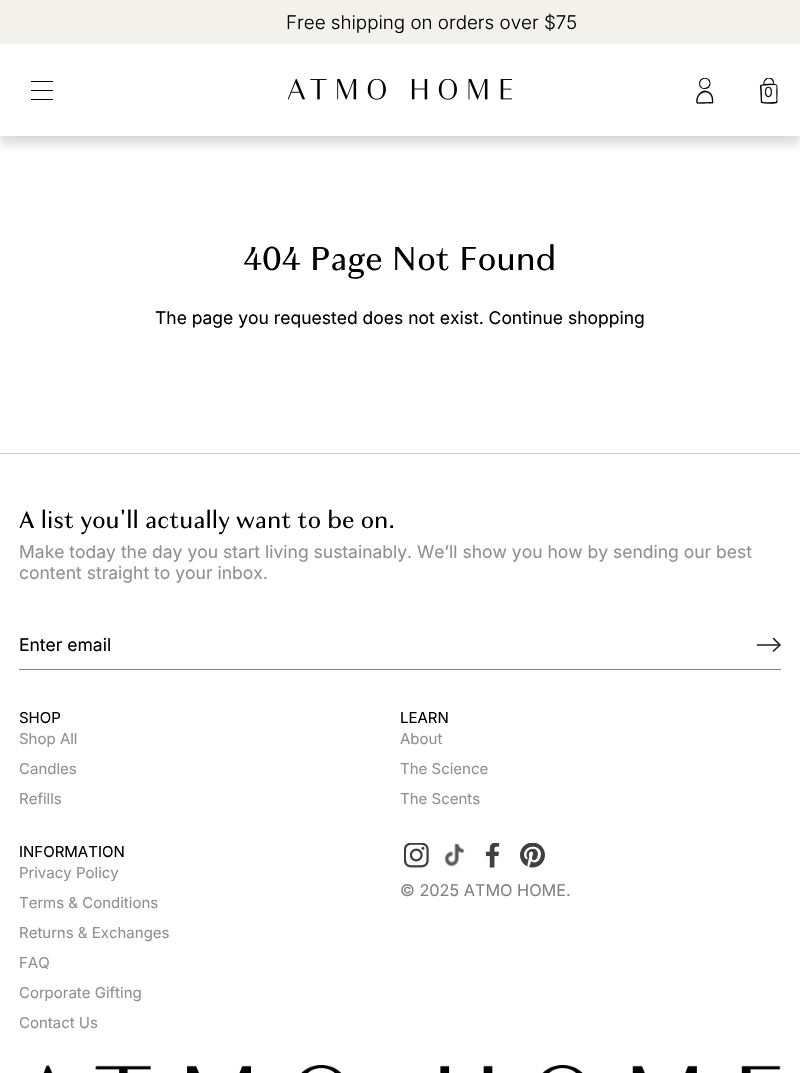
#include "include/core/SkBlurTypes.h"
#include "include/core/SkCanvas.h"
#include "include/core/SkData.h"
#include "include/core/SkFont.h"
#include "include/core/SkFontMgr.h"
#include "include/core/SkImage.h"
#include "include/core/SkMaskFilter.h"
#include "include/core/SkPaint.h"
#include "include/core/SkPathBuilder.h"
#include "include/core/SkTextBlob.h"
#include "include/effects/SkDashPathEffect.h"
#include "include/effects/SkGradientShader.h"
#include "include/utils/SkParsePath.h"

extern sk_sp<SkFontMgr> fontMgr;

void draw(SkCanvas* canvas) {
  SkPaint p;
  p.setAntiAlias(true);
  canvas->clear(SK_ColorWHITE);
  canvas->save();
  canvas->clipRect(SkRect::MakeLTRB(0, 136, 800, 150));
  p.setColor(SkColorSetARGB(38, 0, 0, 0));
  p.setMaskFilter(SkMaskFilter::MakeBlur(kNormal_SkBlurStyle, 5.5f));
  canvas->drawRect(SkRect::MakeLTRB(0, 8, 800, 144), p);
  p.setMaskFilter(nullptr);
  canvas->restore();
  p.setColor(SkColorSetRGB(242, 241, 236));
  canvas->drawRect(SkRect::MakeLTRB(0, 0, 800, 44), p);
  p.setColor(SK_ColorBLACK);
  canvas->drawRect(SkRect::MakeLTRB(31, 81, 53, 82), p);
  canvas->drawRect(SkRect::MakeLTRB(31, 90, 53, 91), p);
  canvas->drawRect(SkRect::MakeLTRB(31, 99, 53, 100), p);
  canvas->drawImageRect(SkImages::DeferredFromEncodedData(SkData::MakeFromFileName("images/1.png")), SkRect::MakeLTRB(288, 79, 512, 100), SkSamplingOptions());
  canvas->drawImageRect(SkImages::DeferredFromEncodedData(SkData::MakeFromFileName("images/2.png")), SkRect::MakeLTRB(696, 78, 714, 104), SkSamplingOptions());
  canvas->drawImageRect(SkImages::DeferredFromEncodedData(SkData::MakeFromFileName("images/3.png")), SkRect::MakeLTRB(759, 78, 778, 104), SkSamplingOptions());
  p.setColor(SkColorSetRGB(204, 204, 204));
  canvas->drawRect(SkRect::MakeLTRB(0, 453, 800, 454), p);
  p.setColor(SkColorSetRGB(128, 128, 128));
  canvas->drawRect(SkRect::MakeLTRB(19, 669, 781, 670), p);
  p.setStyle(SkPaint::kStroke_Style);
  p.setStrokeWidth(1.6f);
  p.setStrokeCap(SkPaint::kRound_Cap);
  p.setColor(SkColorSetRGB(27, 28, 28));
  canvas->drawPath(SkPathBuilder().moveTo(773.5f, 651).lineTo(780, 645).lineTo(773.5f, 638.5f).detach(), p);
  p.setStrokeJoin(SkPaint::kRound_Join);
  canvas->drawPath(SkPathBuilder().moveTo(779, 645).lineTo(757.5f, 645).detach(), p);
  canvas->drawImageRect(SkImages::DeferredFromEncodedData(SkData::MakeFromFileName("images/4.png")), SkRect::MakeLTRB(404, 843, 429, 868), SkSamplingOptions());
  canvas->drawImageRect(SkImages::DeferredFromEncodedData(SkData::MakeFromFileName("images/5.png")), SkRect::MakeLTRB(444, 843, 465, 867), SkSamplingOptions());
  canvas->drawImageRect(SkImages::DeferredFromEncodedData(SkData::MakeFromFileName("images/6.png")), SkRect::MakeLTRB(485, 843, 500, 868), SkSamplingOptions());
  canvas->drawImageRect(SkImages::DeferredFromEncodedData(SkData::MakeFromFileName("images/7.png")), SkRect::MakeLTRB(520, 843, 545, 868), SkSamplingOptions());
  canvas->drawImageRect(SkImages::DeferredFromEncodedData(SkData::MakeFromFileName("images/8.png")), SkRect::MakeLTRB(43, 1065, 781, 1073), SkSamplingOptions());
  SkFont font1(fontMgr->matchFamilyStyle("Inter", SkFontStyle(300, SkFontStyle::kNormal_Width, SkFontStyle::kUpright_Slant)), 18.75f);
  font1.setSubpixel(true);
  p.setStyle(SkPaint::kFill_Style);
  p.setColor(SK_ColorBLACK);
  canvas->drawString("Free shipping on orders over $75", 286, 29, font1, p);
  SkFont font2(fontMgr->matchFamilyStyle("Inter", SkFontStyle::Normal()), 14);
  font2.setSubpixel(true);
  p.setColor(SkColorSetRGB(27, 28, 28));
  canvas->drawString("0", 764, 97, font2, p);
  SkFont font3(fontMgr->matchFamilyStyle("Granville", SkFontStyle::Normal()), 35);
  font3.setSubpixel(true);
  p.setColor(SK_ColorBLACK);
  canvas->drawString("404 Page Not Found", 243, 270, font3, p);
  SkFont font4(fontMgr->matchFamilyStyle("Inter", SkFontStyle::Normal()), 17.5f);
  font4.setSubpixel(true);
  canvas->drawString("The page you requested does not exist. Continue shopping", 155, 324, font4, p);
  SkFont font5(fontMgr->matchFamilyStyle("Granville", SkFontStyle::Normal()), 25);
  font5.setSubpixel(true);
  canvas->drawString("A list you'll actually want to be on.", 19, 528, font5, p);
  p.setColor(SkColorSetRGB(145, 143, 143));
  canvas->drawString("Make today the day you start living sustainably. We’ll show you how by sending our best", 19, 558, font4, p);
  canvas->drawString("content straight to your inbox.", 19, 579, font4, p);
  p.setColor(SK_ColorBLACK);
  canvas->drawString("Enter email", 19, 651, font4, p);
  SkFont font6(fontMgr->matchFamilyStyle("Inter", SkFontStyle::Normal()), 15);
  font6.setSubpixel(true);
  canvas->drawString("SHOP", 19, 723, font6, p);
  p.setColor(SkColorSetRGB(145, 143, 143));
  canvas->drawString("Shop All", 19, 744, font6, p);
  canvas->drawString("Candles", 19, 774, font6, p);
  canvas->drawString("Refills", 19, 804, font6, p);
  p.setColor(SK_ColorBLACK);
  canvas->drawString("LEARN", 400, 723, font6, p);
  p.setColor(SkColorSetRGB(145, 143, 143));
  canvas->drawString("About", 400, 744, font6, p);
  canvas->drawString("The Science", 400, 774, font6, p);
  canvas->drawString("The Scents", 400, 804, font6, p);
  p.setColor(SK_ColorBLACK);
  canvas->drawString("INFORMATION", 19, 857, font6, p);
  p.setColor(SkColorSetRGB(145, 143, 143));
  canvas->drawString("Privacy Policy", 19, 878, font6, p);
  canvas->drawString("Terms & Conditions", 19, 908, font6, p);
  canvas->drawString("Returns & Exchanges", 19, 938, font6, p);
  canvas->drawString("FAQ", 19, 968, font6, p);
  canvas->drawString("Corporate Gifting", 19, 998, font6, p);
  canvas->drawString("Contact Us", 19, 1028, font6, p);
  SkFont font7(fontMgr->matchFamilyStyle("Inter", SkFontStyle::Normal()), 16.25f);
  font7.setSubpixel(true);
  p.setColor(SkColorSetRGB(128, 128, 128));
  canvas->drawString("© 2025 ATMO HOME.", 400, 896, font7, p);
}
